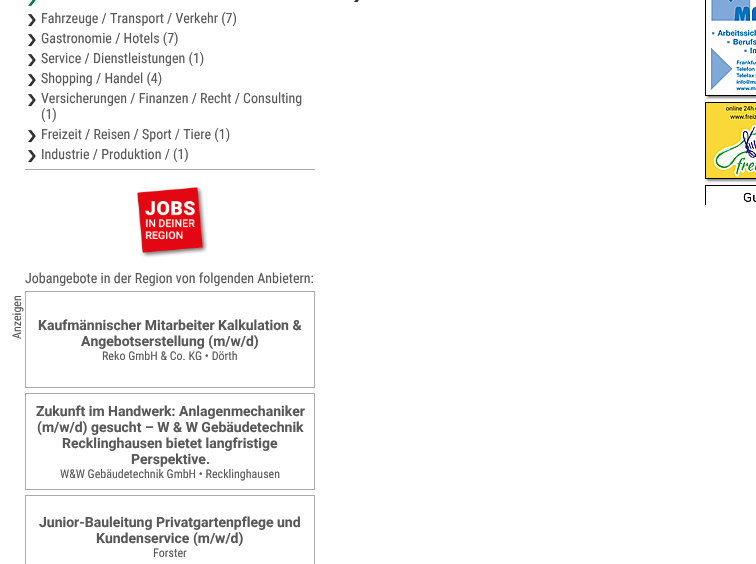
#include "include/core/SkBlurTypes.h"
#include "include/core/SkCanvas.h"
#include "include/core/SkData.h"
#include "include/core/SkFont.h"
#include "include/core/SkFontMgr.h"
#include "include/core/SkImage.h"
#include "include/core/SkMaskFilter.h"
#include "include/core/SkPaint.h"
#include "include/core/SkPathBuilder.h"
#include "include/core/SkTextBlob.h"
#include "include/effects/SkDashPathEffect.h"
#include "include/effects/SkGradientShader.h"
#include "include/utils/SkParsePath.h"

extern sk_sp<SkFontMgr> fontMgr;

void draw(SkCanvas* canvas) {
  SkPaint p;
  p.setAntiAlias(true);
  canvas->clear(SK_ColorWHITE);
  canvas->drawImageRect(SkImages::DeferredFromEncodedData(SkData::MakeFromFileName("images/1.png")), SkRect::MakeLTRB(354, 0, 359, 2), SkSamplingOptions());
  p.setColor(SkColorSetRGB(136, 136, 136));
  p.setMaskFilter(SkMaskFilter::MakeBlur(kNormal_SkBlurStyle, 1));
  canvas->drawRect(SkRect::MakeLTRB(707, -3, 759, 98), p);
  p.setMaskFilter(nullptr);
  p.setStyle(SkPaint::kStroke_Style);
  p.setStrokeWidth(1);
  p.setColor(SK_ColorBLACK);
  canvas->drawRect(SkRect::MakeLTRB(705.5f, -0.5f, 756.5f, 95.5f), p);
  canvas->drawImageRect(SkImages::DeferredFromEncodedData(SkData::MakeFromFileName("images/2.png")), SkRect::MakeLTRB(706, 0, 756, 95), SkSamplingOptions());
  p.setStyle(SkPaint::kFill_Style);
  p.setColor(SkColorSetRGB(136, 136, 136));
  p.setMaskFilter(SkMaskFilter::MakeBlur(kNormal_SkBlurStyle, 1));
  canvas->drawRect(SkRect::MakeLTRB(707, 104, 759, 181), p);
  p.setMaskFilter(nullptr);
  p.setStyle(SkPaint::kStroke_Style);
  p.setColor(SK_ColorBLACK);
  canvas->drawRect(SkRect::MakeLTRB(705.5f, 102.5f, 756.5f, 178.5f), p);
  canvas->drawImageRect(SkImages::DeferredFromEncodedData(SkData::MakeFromFileName("images/3.png")), SkRect::MakeLTRB(706, 103, 756, 178), SkSamplingOptions());
  canvas->save();
  canvas->clipRect(SkRect::MakeLTRB(700, 0, 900, 205));
  canvas->drawRect(SkRect::MakeLTRB(705.5f, 185.5f, 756.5f, 371.5f), p);
  canvas->restore();
  canvas->drawImageRect(SkImages::DeferredFromEncodedData(SkData::MakeFromFileName("images/4.png")), SkRect::MakeLTRB(742, 188, 756, 202), SkSamplingOptions());
  canvas->drawImageRect(SkImages::DeferredFromEncodedData(SkData::MakeFromFileName("images/5.png")), SkRect::MakeLTRB(28, 0, 36, 6), SkSamplingOptions());
  canvas->drawImageRect(SkImages::DeferredFromEncodedData(SkData::MakeFromFileName("images/6.png")), SkRect::MakeLTRB(28, 14, 36, 26), SkSamplingOptions());
  canvas->drawImageRect(SkImages::DeferredFromEncodedData(SkData::MakeFromFileName("images/6.png")), SkRect::MakeLTRB(28, 34, 36, 46), SkSamplingOptions());
  canvas->drawImageRect(SkImages::DeferredFromEncodedData(SkData::MakeFromFileName("images/6.png")), SkRect::MakeLTRB(28, 54, 36, 66), SkSamplingOptions());
  canvas->drawImageRect(SkImages::DeferredFromEncodedData(SkData::MakeFromFileName("images/6.png")), SkRect::MakeLTRB(28, 74, 36, 86), SkSamplingOptions());
  canvas->drawImageRect(SkImages::DeferredFromEncodedData(SkData::MakeFromFileName("images/6.png")), SkRect::MakeLTRB(28, 94, 36, 106), SkSamplingOptions());
  canvas->drawImageRect(SkImages::DeferredFromEncodedData(SkData::MakeFromFileName("images/6.png")), SkRect::MakeLTRB(28, 130, 36, 142), SkSamplingOptions());
  canvas->drawImageRect(SkImages::DeferredFromEncodedData(SkData::MakeFromFileName("images/6.png")), SkRect::MakeLTRB(28, 150, 36, 162), SkSamplingOptions());
  canvas->drawImageRect(SkImages::DeferredFromEncodedData(SkData::MakeFromFileName("images/7.png")), SkRect::MakeLTRB(136, 186, 208, 258), SkSamplingOptions());
  p.setStyle(SkPaint::kFill_Style);
  p.setColor(SkColorSetRGB(170, 170, 170));
  canvas->drawRect(SkRect::MakeLTRB(25, 169, 315, 170), p);
  p.setStyle(SkPaint::kStroke_Style);
  canvas->drawRect(SkRect::MakeLTRB(25.5f, 291.5f, 314.5f, 387.5f), p);
  canvas->drawRect(SkRect::MakeLTRB(25.5f, 393.5f, 314.5f, 489.5f), p);
  canvas->drawRect(SkRect::MakeLTRB(25.5f, 495.5f, 314.5f, 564.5f), p);
  SkFont font1(fontMgr->matchFamilyStyle("Roboto Condensed", SkFontStyle::Normal()), 14);
  font1.setSubpixel(true);
  p.setStyle(SkPaint::kFill_Style);
  p.setColor(SkColorSetRGB(88, 88, 90));
  canvas->drawString("Fahrzeuge / Transport / Verkehr (7)", 41, 23, font1, p);
  canvas->drawString("Gastronomie / Hotels (7)", 41, 43, font1, p);
  canvas->drawString("Service / Dienstleistungen (1)", 41, 63, font1, p);
  canvas->drawString("Shopping / Handel (4)", 41, 83, font1, p);
  canvas->drawString("Versicherungen / Finanzen / Recht / Consulting", 41, 103, font1, p);
  canvas->drawString("(1)", 41, 119, font1, p);
  canvas->drawString("Freizeit / Reisen / Sport / Tiere (1)", 41, 139, font1, p);
  canvas->drawString("Industrie / Produktion / (1)", 41, 159, font1, p);
  canvas->drawString("Jobangebote in der Region von folgenden Anbietern:", 25, 283, font1, p);
  SkFont font2(fontMgr->matchFamilyStyle("Roboto Condensed", SkFontStyle::Normal()), 12);
  font2.setSubpixel(true);
  canvas->save();
  canvas->rotate(-90, 21, 339);
  canvas->drawString("Anzeigen", 21, 339, font2, p);
  canvas->restore();
  SkFont font3(fontMgr->matchFamilyStyle("Roboto", SkFontStyle::Bold()), 14);
  font3.setSubpixel(true);
  canvas->drawString("Kaufmännischer Mitarbeiter Kalkulation &", 38, 330, font3, p);
  canvas->drawString("Angebotserstellung (m/w/d)", 81, 346, font3, p);
  canvas->drawString("Reko GmbH & Co. KG • Dörth", 102, 360, font2, p);
  canvas->drawString("Zukunft im Handwerk: Anlagenmechaniker", 36, 416, font3, p);
  canvas->drawString("(m/w/d) gesucht – W & W Gebäudetechnik", 37, 432, font3, p);
  canvas->drawString("Recklinghausen bietet langfristige", 62, 448, font3, p);
  canvas->drawString("Perspektive.", 131, 464, font3, p);
  canvas->drawString("W&W Gebäudetechnik GmbH • Recklinghausen", 60, 478, font2, p);
  canvas->drawString("Junior-Bauleitung Privatgartenpflege und", 39, 527, font3, p);
  canvas->drawString("Kundenservice (m/w/d)", 96, 543, font3, p);
  canvas->drawString("Forster", 153, 557, font2, p);
}
